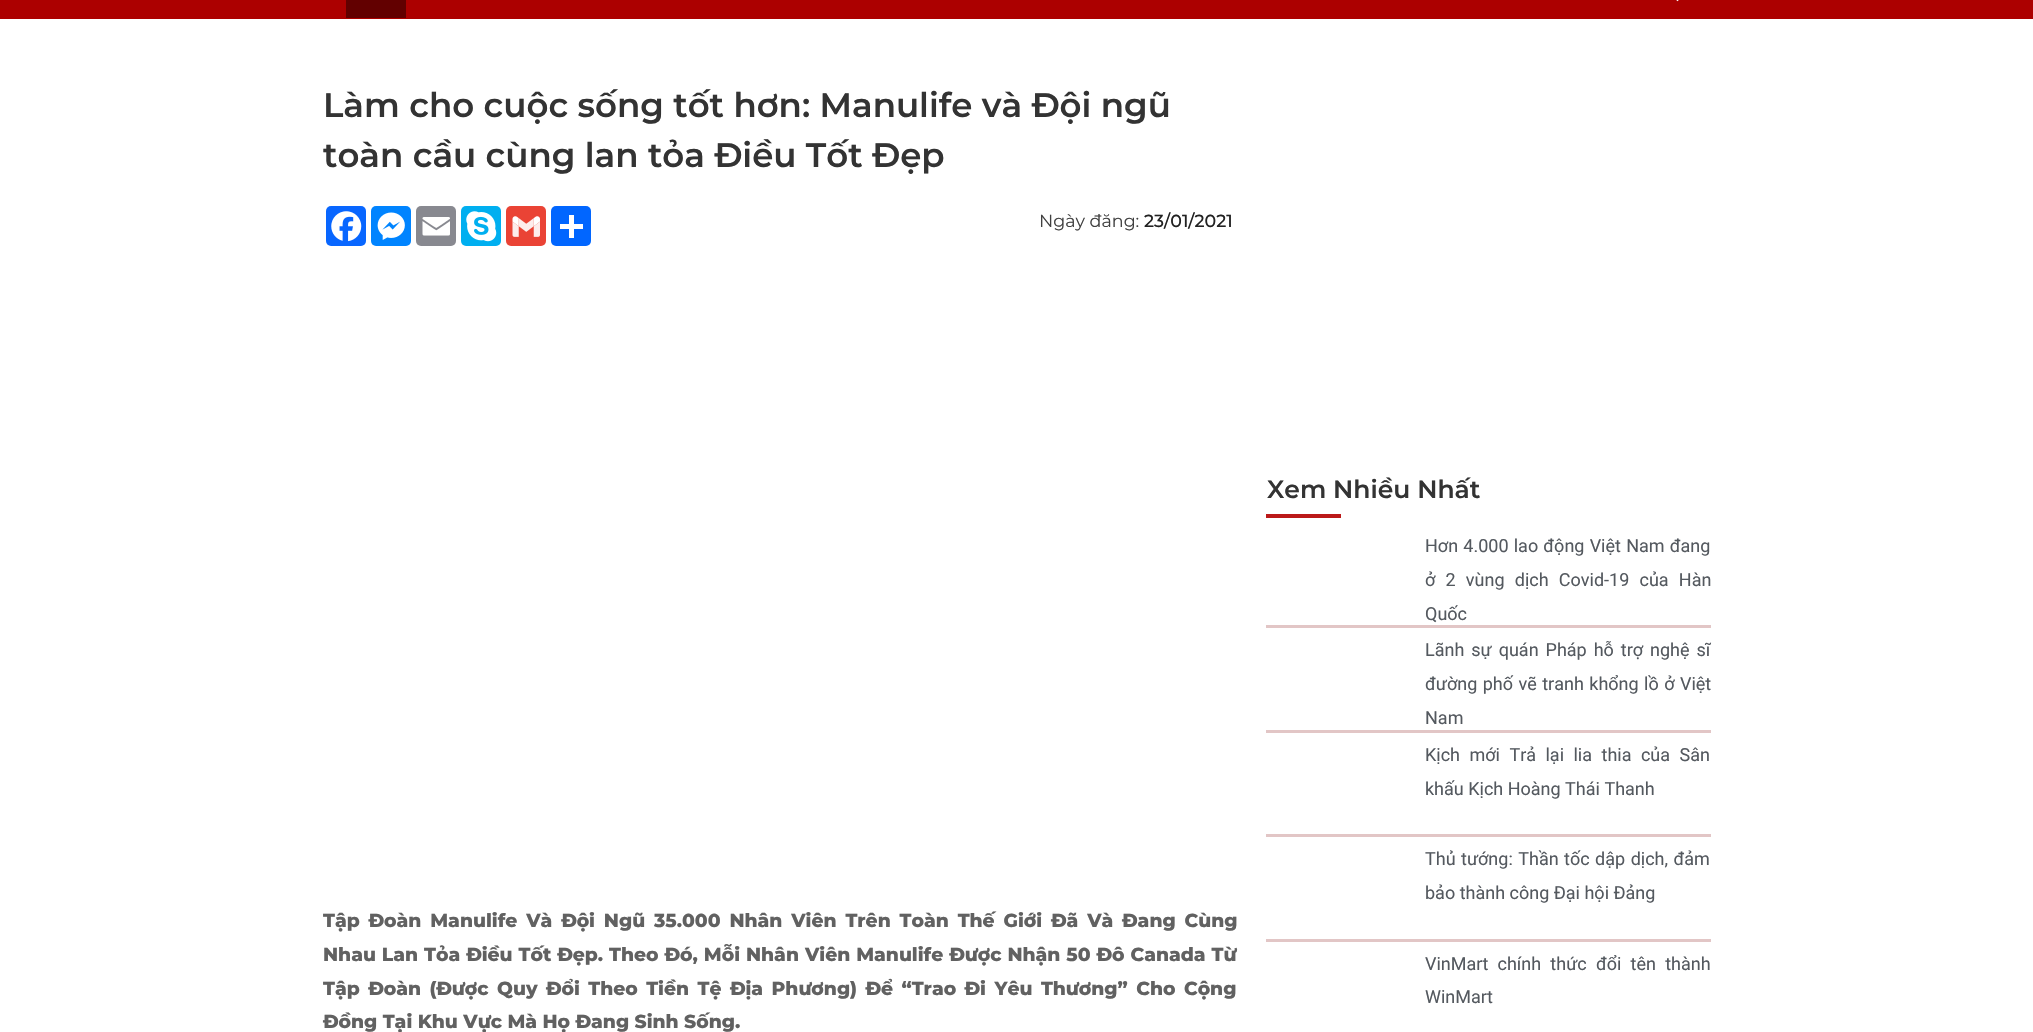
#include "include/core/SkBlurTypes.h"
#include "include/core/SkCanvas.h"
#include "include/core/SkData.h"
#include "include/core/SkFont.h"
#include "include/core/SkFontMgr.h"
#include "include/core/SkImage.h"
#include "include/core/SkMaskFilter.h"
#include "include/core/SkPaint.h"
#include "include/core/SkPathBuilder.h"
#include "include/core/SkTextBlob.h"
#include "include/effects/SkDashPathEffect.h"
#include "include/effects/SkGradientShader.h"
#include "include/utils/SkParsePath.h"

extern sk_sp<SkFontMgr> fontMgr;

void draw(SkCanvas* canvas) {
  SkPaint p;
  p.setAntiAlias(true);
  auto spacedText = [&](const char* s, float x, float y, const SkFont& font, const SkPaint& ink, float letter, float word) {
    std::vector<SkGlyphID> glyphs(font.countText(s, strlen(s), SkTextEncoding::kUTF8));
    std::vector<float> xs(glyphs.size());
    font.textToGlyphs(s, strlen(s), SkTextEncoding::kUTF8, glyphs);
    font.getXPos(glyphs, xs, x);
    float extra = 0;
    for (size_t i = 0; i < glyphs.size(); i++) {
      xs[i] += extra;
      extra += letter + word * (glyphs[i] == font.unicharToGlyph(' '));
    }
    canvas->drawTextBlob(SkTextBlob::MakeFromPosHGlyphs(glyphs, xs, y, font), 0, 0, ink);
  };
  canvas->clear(SK_ColorWHITE);
  p.setColor(SkColorSetRGB(172, 0, 0));
  canvas->drawRect(SkRect::MakeLTRB(0, 0, 2033, 19), p);
  p.setColor(SkColorSetRGB(98, 0, 0));
  canvas->drawRect(SkRect::MakeLTRB(346, 0, 406, 18), p);
  canvas->drawImageRect(SkImages::DeferredFromEncodedData(SkData::MakeFromFileName("images/1.png")), SkRect::MakeLTRB(1676, 0, 1679, 2), SkSamplingOptions());
  p.setColor(SkColorSetRGB(8, 102, 255));
  canvas->drawRoundRect(SkRect::MakeLTRB(326, 206, 366, 246), 5, 5, p);
  canvas->drawImageRect(SkImages::DeferredFromEncodedData(SkData::MakeFromFileName("images/2.png")), SkRect::MakeLTRB(331, 211, 362, 242), SkSamplingOptions());
  p.setColor(SkColorSetRGB(0, 132, 255));
  canvas->drawRoundRect(SkRect::MakeLTRB(371, 206, 411, 246), 5, 5, p);
  canvas->drawImageRect(SkImages::DeferredFromEncodedData(SkData::MakeFromFileName("images/3.png")), SkRect::MakeLTRB(377, 212, 405, 240), SkSamplingOptions());
  p.setColor(SkColorSetRGB(136, 137, 144));
  canvas->drawRoundRect(SkRect::MakeLTRB(416, 206, 456, 246), 5, 5, p);
  canvas->drawImageRect(SkImages::DeferredFromEncodedData(SkData::MakeFromFileName("images/4.png")), SkRect::MakeLTRB(422, 217, 450, 236), SkSamplingOptions());
  p.setColor(SkColorSetRGB(0, 175, 240));
  canvas->drawRoundRect(SkRect::MakeLTRB(461, 206, 501, 246), 5, 5, p);
  canvas->drawImageRect(SkImages::DeferredFromEncodedData(SkData::MakeFromFileName("images/5.png")), SkRect::MakeLTRB(466, 211, 497, 242), SkSamplingOptions());
  p.setColor(SkColorSetRGB(234, 67, 53));
  canvas->drawRoundRect(SkRect::MakeLTRB(506, 206, 546, 246), 5, 5, p);
  canvas->drawImageRect(SkImages::DeferredFromEncodedData(SkData::MakeFromFileName("images/6.png")), SkRect::MakeLTRB(512, 216, 540, 237), SkSamplingOptions());
  p.setColor(SkColorSetRGB(1, 102, 255));
  canvas->drawRoundRect(SkRect::MakeLTRB(551, 206, 591, 246), 5, 5, p);
  p.setColor(SK_ColorWHITE);
  canvas->drawRect(SkRect::MakeLTRB(569, 215, 574, 238), p);
  canvas->drawRect(SkRect::MakeLTRB(560, 224, 583, 229), p);
  p.setColor(SkColorSetRGB(187, 25, 25));
  canvas->drawRect(SkRect::MakeLTRB(1266, 514, 1341, 518), p);
  p.setColor(SkColorSetRGB(226, 198, 198));
  canvas->drawRect(SkRect::MakeLTRB(1266, 625, 1711, 628), p);
  canvas->drawRect(SkRect::MakeLTRB(1266, 730, 1711, 733), p);
  canvas->drawRect(SkRect::MakeLTRB(1266, 834, 1711, 837), p);
  canvas->drawRect(SkRect::MakeLTRB(1266, 939, 1711, 942), p);
  SkFont font1(fontMgr->matchFamilyStyle("Montserrat", SkFontStyle(600, SkFontStyle::kNormal_Width, SkFontStyle::kUpright_Slant)), 34);
  font1.setSubpixel(true);
  p.setColor(SkColorSetRGB(51, 51, 51));
  canvas->drawString("Làm cho cuộc sống tốt hơn: Manulife và Đội ngũ", 323, 117, font1, p);
  canvas->drawString("toàn cầu cùng lan tỏa Điều Tốt Đẹp", 323, 167, font1, p);
  SkFont font2(fontMgr->matchFamilyStyle("Montserrat", SkFontStyle::Normal()), 17.5f);
  font2.setSubpixel(true);
  p.setColor(SkColorSetRGB(64, 64, 64));
  canvas->drawString("Ngày đăng:", 1039, 227, font2, p);
  SkFont font3(fontMgr->matchFamilyStyle("Montserrat", SkFontStyle(500, SkFontStyle::kNormal_Width, SkFontStyle::kUpright_Slant)), 17.5f);
  font3.setSubpixel(true);
  p.setColor(SkColorSetRGB(34, 34, 34));
  canvas->drawString("23/01/2021", 1144, 227, font3, p);
  SkFont font4(fontMgr->matchFamilyStyle("Montserrat", SkFontStyle(800, SkFontStyle::kNormal_Width, SkFontStyle::kUpright_Slant)), 18.75f);
  font4.setSubpixel(true);
  p.setColor(SkColorSetRGB(97, 97, 97));
  spacedText("Tập Đoàn Manulife Và Đội Ngũ 35.000 Nhân Viên Trên Toàn Thế Giới Đã Và Đang Cùng", 323, 927, font4, p, 0, 3.4f);
  spacedText("Nhau Lan Tỏa Điều Tốt Đẹp. Theo Đó, Mỗi Nhân Viên Manulife Được Nhận 50 Đô Canada Từ", 323, 961, font4, p, 0, 0.5f);
  spacedText("Tập Đoàn (Được Quy Đổi Theo Tiền Tệ Địa Phương) Để “Trao Đi Yêu Thương” Cho Cộng", 323, 995, font4, p, 0, 3);
  canvas->drawString("Đồng Tại Khu Vực Mà Họ Đang Sinh Sống.", 323, 1028, font4, p);
  SkFont font5(fontMgr->matchFamilyStyle("Montserrat", SkFontStyle(600, SkFontStyle::kNormal_Width, SkFontStyle::kUpright_Slant)), 25);
  font5.setSubpixel(true);
  p.setColor(SkColorSetRGB(51, 51, 51));
  canvas->drawString("Xem Nhiều Nhất", 1267, 498, font5, p);
  SkFont font6(fontMgr->matchFamilyStyle("Roboto", SkFontStyle::Normal()), 18);
  font6.setSubpixel(true);
  p.setColor(SkColorSetRGB(84, 89, 95));
  spacedText("Hơn 4.000 lao động Việt Nam đang", 1425, 552, font6, p, 0, 0.75f);
  spacedText("ở 2 vùng dịch Covid-19 của Hàn", 1425, 586, font6, p, 0, 5.75f);
  canvas->drawString("Quốc", 1425, 620, font6, p);
  spacedText("Lãnh sự quán Pháp hỗ trợ nghệ sĩ", 1425, 656, font6, p, 0, 2.5f);
  spacedText("đường phố vẽ tranh khổng lồ ở Việt", 1425, 690, font6, p, 0, 1);
  canvas->drawString("Nam", 1425, 724, font6, p);
  spacedText("Kịch mới Trả lại lia thia của Sân", 1425, 761, font6, p, 0, 5);
  canvas->drawString("khấu Kịch Hoàng Thái Thanh", 1425, 795, font6, p);
  spacedText("Thủ tướng: Thần tốc dập dịch, đảm", 1425, 865, font6, p, 0, 1);
  canvas->drawString("bảo thành công Đại hội Đảng", 1425, 899, font6, p);
  spacedText("VinMart chính thức đổi tên thành", 1425, 970, font6, p, 0, 4.75f);
  canvas->drawString("WinMart", 1425, 1003, font6, p);
}
